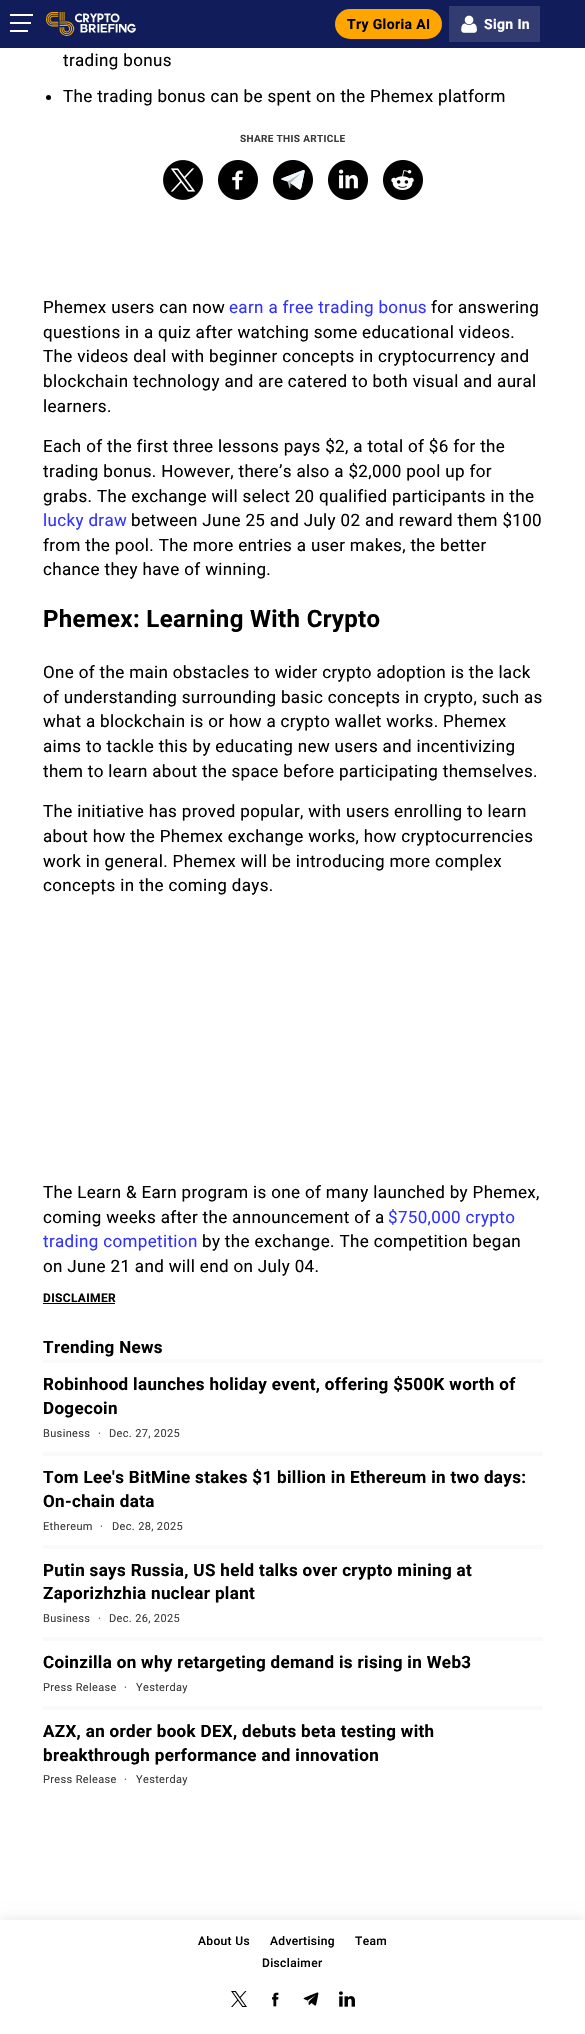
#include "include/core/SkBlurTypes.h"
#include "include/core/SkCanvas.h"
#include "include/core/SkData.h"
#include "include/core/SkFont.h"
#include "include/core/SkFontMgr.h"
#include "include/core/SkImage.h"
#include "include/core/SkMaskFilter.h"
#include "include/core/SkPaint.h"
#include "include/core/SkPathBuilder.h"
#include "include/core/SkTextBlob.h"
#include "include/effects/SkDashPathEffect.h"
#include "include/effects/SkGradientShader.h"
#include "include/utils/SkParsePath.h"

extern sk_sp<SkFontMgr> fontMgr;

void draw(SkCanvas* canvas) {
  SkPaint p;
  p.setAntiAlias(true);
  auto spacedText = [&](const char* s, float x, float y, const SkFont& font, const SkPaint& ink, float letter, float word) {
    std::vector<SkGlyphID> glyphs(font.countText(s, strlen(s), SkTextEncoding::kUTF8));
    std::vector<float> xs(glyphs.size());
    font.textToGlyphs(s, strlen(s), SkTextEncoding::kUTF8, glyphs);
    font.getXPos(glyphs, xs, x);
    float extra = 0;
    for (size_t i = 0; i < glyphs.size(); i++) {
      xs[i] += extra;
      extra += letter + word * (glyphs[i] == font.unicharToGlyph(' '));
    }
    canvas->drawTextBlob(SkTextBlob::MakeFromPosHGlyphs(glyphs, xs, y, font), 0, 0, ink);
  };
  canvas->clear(SK_ColorWHITE);
  p.setColor(SkColorSetRGB(17, 29, 91));
  canvas->drawRect(SkRect::MakeLTRB(0, 0, 585, 48), p);
  p.setColor(SK_ColorWHITE);
  canvas->drawRect(SkRect::MakeLTRB(10, 14, 33, 16), p);
  canvas->drawRect(SkRect::MakeLTRB(10, 22, 31, 24), p);
  canvas->drawRect(SkRect::MakeLTRB(10, 30, 28, 32), p);
  canvas->drawImageRect(SkImages::DeferredFromEncodedData(SkData::MakeFromFileName("images/1.png")), SkRect::MakeLTRB(46, 12, 136, 36), SkSamplingOptions());
  p.setColor(SkColorSetRGB(255, 165, 0));
  canvas->drawRoundRect(SkRect::MakeLTRB(335, 9, 442, 39), 15, 15, p);
  p.setColor(SkColorSetRGB(50, 60, 113));
  canvas->drawRect(SkRect::MakeLTRB(449, 6, 540, 42), p);
  canvas->drawImageRect(SkImages::DeferredFromEncodedData(SkData::MakeFromFileName("images/2.png")), SkRect::MakeLTRB(461, 15, 477, 33), SkSamplingOptions());
  p.setColor(SK_ColorBLACK);
  canvas->drawCircle(48.5f, 97.5f, 2.5f, p);
  canvas->drawImageRect(SkImages::DeferredFromEncodedData(SkData::MakeFromFileName("images/3.png")), SkRect::MakeLTRB(163, 160, 203, 200), SkSamplingOptions());
  canvas->drawImageRect(SkImages::DeferredFromEncodedData(SkData::MakeFromFileName("images/4.png")), SkRect::MakeLTRB(218, 160, 258, 200), SkSamplingOptions());
  canvas->drawImageRect(SkImages::DeferredFromEncodedData(SkData::MakeFromFileName("images/5.png")), SkRect::MakeLTRB(273, 160, 313, 200), SkSamplingOptions());
  canvas->drawImageRect(SkImages::DeferredFromEncodedData(SkData::MakeFromFileName("images/6.png")), SkRect::MakeLTRB(328, 160, 368, 200), SkSamplingOptions());
  canvas->drawImageRect(SkImages::DeferredFromEncodedData(SkData::MakeFromFileName("images/7.png")), SkRect::MakeLTRB(383, 160, 423, 200), SkSamplingOptions());
  canvas->drawRect(SkRect::MakeLTRB(43, 1303, 115, 1304), p);
  p.setColor(SkColorSetRGB(250, 250, 250));
  canvas->drawRect(SkRect::MakeLTRB(43, 1359, 543, 1363), p);
  canvas->drawRect(SkRect::MakeLTRB(43, 1452, 543, 1456), p);
  canvas->drawRect(SkRect::MakeLTRB(43, 1545, 543, 1549), p);
  canvas->drawRect(SkRect::MakeLTRB(43, 1637, 543, 1641), p);
  canvas->drawRect(SkRect::MakeLTRB(43, 1706, 543, 1710), p);
  p.setColor(SkColorSetARGB(26, 0, 0, 0));
  p.setMaskFilter(SkMaskFilter::MakeBlur(kNormal_SkBlurStyle, 6));
  canvas->drawRect(SkRect::MakeLTRB(0, 1920, 585, 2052), p);
  p.setMaskFilter(nullptr);
  p.setColor(SK_ColorWHITE);
  canvas->drawRect(SkRect::MakeLTRB(0, 1920, 585, 2034), p);
  canvas->drawImageRect(SkImages::DeferredFromEncodedData(SkData::MakeFromFileName("images/8.png")), SkRect::MakeLTRB(231, 1991, 247, 2007), SkSamplingOptions());
  canvas->drawImageRect(SkImages::DeferredFromEncodedData(SkData::MakeFromFileName("images/9.png")), SkRect::MakeLTRB(272, 1992, 279, 2007), SkSamplingOptions());
  canvas->drawImageRect(SkImages::DeferredFromEncodedData(SkData::MakeFromFileName("images/10.png")), SkRect::MakeLTRB(303, 1992, 319, 2006), SkSamplingOptions());
  canvas->drawImageRect(SkImages::DeferredFromEncodedData(SkData::MakeFromFileName("images/11.png")), SkRect::MakeLTRB(339, 1991, 355, 2007), SkSamplingOptions());
  SkFont font1(fontMgr->matchFamilyStyle("Roboto", SkFontStyle::Bold()), 14);
  font1.setSubpixel(true);
  p.setColor(SK_ColorBLACK);
  spacedText("Try Gloria AI", 347, 29, font1, p, 0.35f, 0);
  p.setColor(SK_ColorWHITE);
  spacedText("Sign In", 484, 29, font1, p, 0.35f, 0);
  SkFont font2(fontMgr->matchFamilyStyle("Roboto", SkFontStyle::Normal()), 17);
  font2.setSubpixel(true);
  p.setColor(SK_ColorBLACK);
  spacedText("trading bonus", 63, 66, font2, p, 0.35f, 0);
  spacedText("The trading bonus can be spent on the Phemex platform", 63, 102, font2, p, 0.35f, 0);
  SkFont font3(fontMgr->matchFamilyStyle("Roboto", SkFontStyle::Bold()), 10);
  font3.setSubpixel(true);
  p.setColor(SkColorSetRGB(59, 59, 59));
  spacedText("SHARE THIS ARTICLE", 240, 142, font3, p, 0.35f, 0);
  p.setColor(SK_ColorBLACK);
  spacedText("Phemex users can now", 43, 313, font2, p, 0.35f, 0);
  p.setColor(SkColorSetRGB(51, 51, 255));
  spacedText("earn a free trading bonus", 229, 313, font2, p, 0.35f, 0);
  p.setColor(SK_ColorBLACK);
  spacedText("for answering", 431, 313, font2, p, 0.35f, 0);
  spacedText("questions in a quiz after watching some educational videos.", 43, 338, font2, p, 0.35f, 0);
  spacedText("The videos deal with beginner concepts in cryptocurrency and", 43, 362, font2, p, 0.35f, 0);
  spacedText("blockchain technology and are catered to both visual and aural", 43, 387, font2, p, 0.35f, 0);
  spacedText("learners.", 43, 412, font2, p, 0.35f, 0);
  spacedText("Each of the first three lessons pays $2, a total of $6 for the", 43, 452, font2, p, 0.35f, 0);
  spacedText("trading bonus. However, there’s also a $2,000 pool up for", 43, 477, font2, p, 0.35f, 0);
  spacedText("grabs. The exchange will select 20 qualified participants in the", 43, 502, font2, p, 0.35f, 0);
  p.setColor(SkColorSetRGB(51, 51, 255));
  spacedText("lucky draw", 43, 526, font2, p, 0.35f, 0);
  p.setColor(SK_ColorBLACK);
  spacedText("between June 25 and July 02 and reward them $100", 131, 526, font2, p, 0.35f, 0);
  spacedText("from the pool. The more entries a user makes, the better", 43, 551, font2, p, 0.35f, 0);
  spacedText("chance they have of winning.", 43, 575, font2, p, 0.35f, 0);
  SkFont font4(fontMgr->matchFamilyStyle("Roboto", SkFontStyle::Bold()), 24);
  font4.setSubpixel(true);
  spacedText("Phemex: Learning With Crypto", 43, 627, font4, p, 0.35f, 0);
  spacedText("One of the main obstacles to wider crypto adoption is the lack", 43, 678, font2, p, 0.35f, 0);
  spacedText("of understanding surrounding basic concepts in crypto, such as", 43, 703, font2, p, 0.35f, 0);
  spacedText("what a blockchain is or how a crypto wallet works. Phemex", 43, 727, font2, p, 0.35f, 0);
  spacedText("aims to tackle this by educating new users and incentivizing", 43, 752, font2, p, 0.35f, 0);
  spacedText("them to learn about the space before participating themselves.", 43, 777, font2, p, 0.35f, 0);
  spacedText("The initiative has proved popular, with users enrolling to learn", 43, 817, font2, p, 0.35f, 0);
  spacedText("about how the Phemex exchange works, how cryptocurrencies", 43, 842, font2, p, 0.35f, 0);
  spacedText("work in general. Phemex will be introducing more complex", 43, 867, font2, p, 0.35f, 0);
  spacedText("concepts in the coming days.", 43, 891, font2, p, 0.35f, 0);
  spacedText("The Learn & Earn program is one of many launched by Phemex,", 43, 1198, font2, p, 0.35f, 0);
  spacedText("coming weeks after the announcement of a", 43, 1223, font2, p, 0.35f, 0);
  p.setColor(SkColorSetRGB(51, 51, 255));
  spacedText("$750,000 crypto", 388, 1223, font2, p, 0.35f, 0);
  spacedText("trading competition", 43, 1247, font2, p, 0.35f, 0);
  p.setColor(SK_ColorBLACK);
  spacedText("by the exchange. The competition began", 202, 1247, font2, p, 0.35f, 0);
  spacedText("on June 21 and will end on July 04.", 43, 1272, font2, p, 0.35f, 0);
  SkFont font5(fontMgr->matchFamilyStyle("Roboto", SkFontStyle::Bold()), 12);
  font5.setSubpixel(true);
  spacedText("DISCLAIMER", 43, 1302, font5, p, 0.35f, 0);
  SkFont font6(fontMgr->matchFamilyStyle("Roboto", SkFontStyle::Bold()), 17);
  font6.setSubpixel(true);
  spacedText("Trending News", 43, 1353, font6, p, 0.35f, 0);
  spacedText("Robinhood launches holiday event, offering $500K worth of", 43, 1390, font6, p, 0.35f, 0);
  spacedText("Dogecoin", 43, 1414, font6, p, 0.35f, 0);
  SkFont font7(fontMgr->matchFamilyStyle("Roboto", SkFontStyle::Normal()), 11);
  font7.setSubpixel(true);
  p.setColor(SkColorSetRGB(59, 59, 59));
  spacedText("Business", 43, 1437, font7, p, 0.35f, 0);
  spacedText("·", 98, 1437, font7, p, 0.35f, 0);
  spacedText("Dec. 27, 2025", 109, 1437, font7, p, 0.35f, 0);
  p.setColor(SK_ColorBLACK);
  spacedText("Tom Lee's BitMine stakes $1 billion in Ethereum in two days:", 43, 1483, font6, p, 0.35f, 0);
  spacedText("On-chain data", 43, 1507, font6, p, 0.35f, 0);
  p.setColor(SkColorSetRGB(59, 59, 59));
  spacedText("Ethereum", 43, 1530, font7, p, 0.35f, 0);
  spacedText("·", 100, 1530, font7, p, 0.35f, 0);
  spacedText("Dec. 28, 2025", 112, 1530, font7, p, 0.35f, 0);
  p.setColor(SK_ColorBLACK);
  spacedText("Putin says Russia, US held talks over crypto mining at", 43, 1576, font6, p, 0.35f, 0);
  spacedText("Zaporizhzhia nuclear plant", 43, 1599, font6, p, 0.35f, 0);
  p.setColor(SkColorSetRGB(59, 59, 59));
  spacedText("Business", 43, 1622, font7, p, 0.35f, 0);
  spacedText("·", 98, 1622, font7, p, 0.35f, 0);
  spacedText("Dec. 26, 2025", 109, 1622, font7, p, 0.35f, 0);
  p.setColor(SK_ColorBLACK);
  spacedText("Coinzilla on why retargeting demand is rising in Web3", 43, 1668, font6, p, 0.35f, 0);
  p.setColor(SkColorSetRGB(59, 59, 59));
  spacedText("Press Release", 43, 1691, font7, p, 0.35f, 0);
  spacedText("·", 124, 1691, font7, p, 0.35f, 0);
  spacedText("Yesterday", 136, 1691, font7, p, 0.35f, 0);
  p.setColor(SK_ColorBLACK);
  spacedText("AZX, an order book DEX, debuts beta testing with", 43, 1737, font6, p, 0.35f, 0);
  spacedText("breakthrough performance and innovation", 43, 1761, font6, p, 0.35f, 0);
  p.setColor(SkColorSetRGB(59, 59, 59));
  spacedText("Press Release", 43, 1783, font7, p, 0.35f, 0);
  spacedText("·", 124, 1783, font7, p, 0.35f, 0);
  spacedText("Yesterday", 136, 1783, font7, p, 0.35f, 0);
  SkFont font8(fontMgr->matchFamilyStyle("Roboto", SkFontStyle(500, SkFontStyle::kNormal_Width, SkFontStyle::kUpright_Slant)), 12);
  font8.setSubpixel(true);
  p.setColor(SK_ColorBLACK);
  spacedText("About Us", 198, 1945, font8, p, 0.35f, 0);
  spacedText("Advertising", 270, 1945, font8, p, 0.35f, 0);
  spacedText("Team", 355, 1945, font8, p, 0.35f, 0);
  spacedText("Disclaimer", 262, 1967, font8, p, 0.35f, 0);
}
